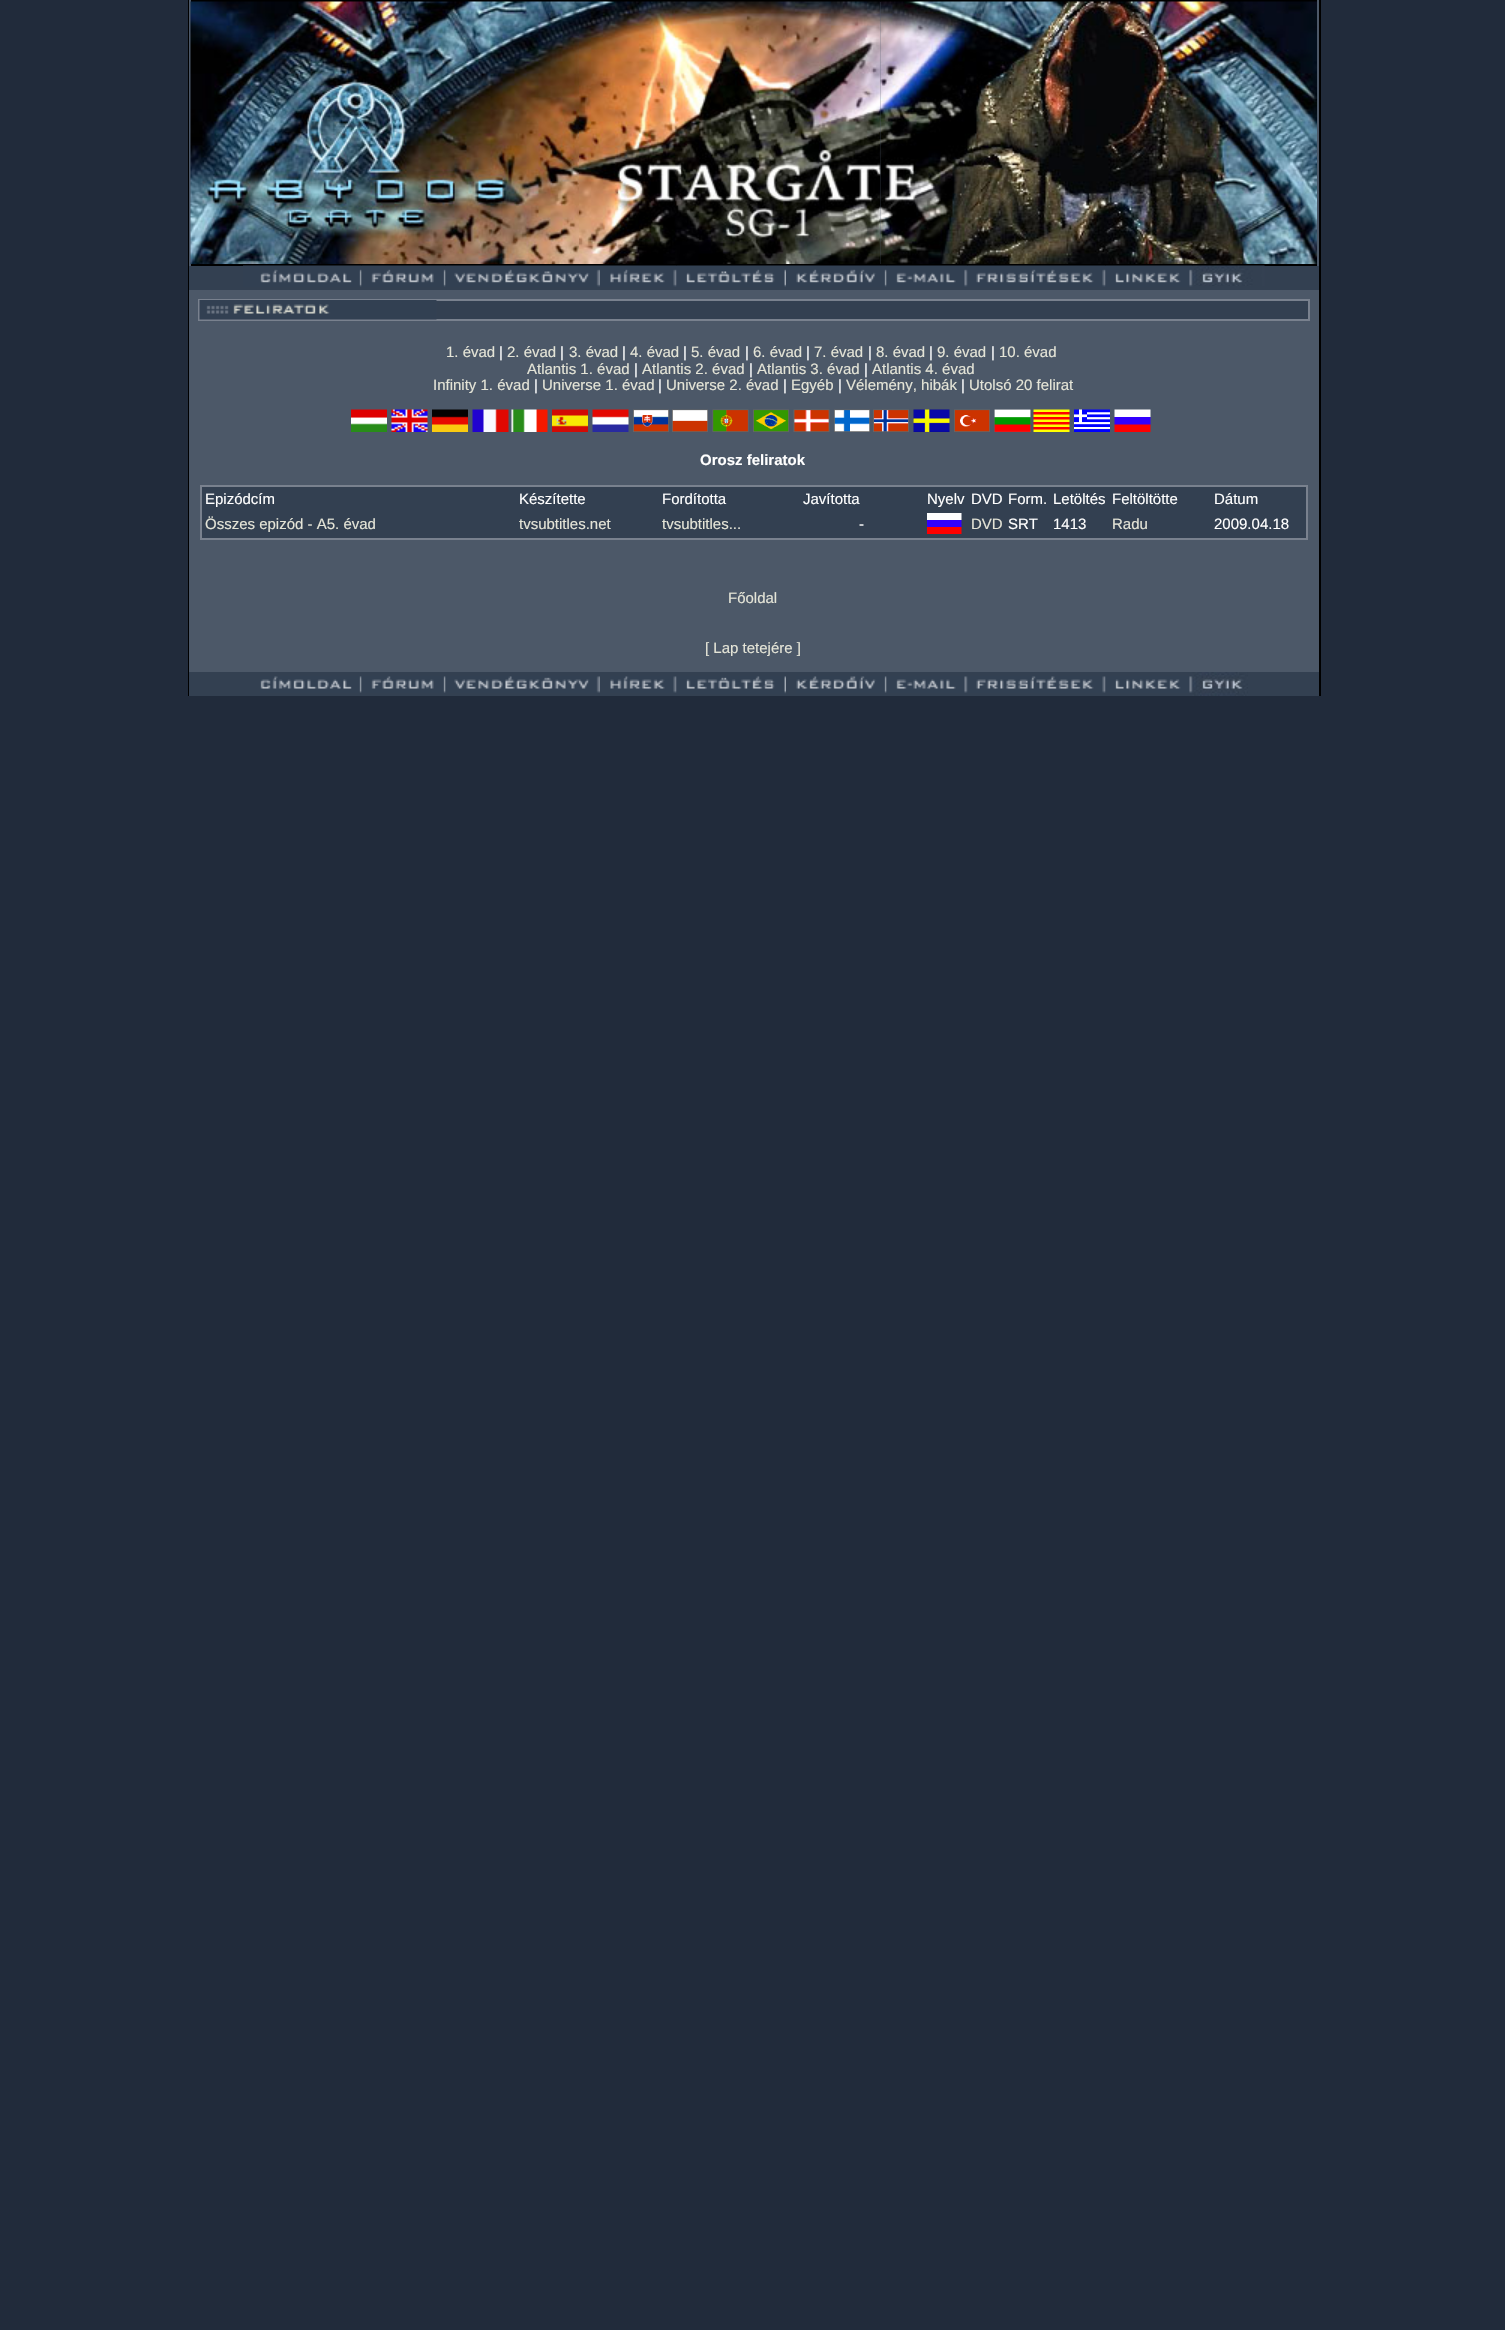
#include "include/core/SkBlurTypes.h"
#include "include/core/SkCanvas.h"
#include "include/core/SkData.h"
#include "include/core/SkFont.h"
#include "include/core/SkFontMgr.h"
#include "include/core/SkImage.h"
#include "include/core/SkMaskFilter.h"
#include "include/core/SkPaint.h"
#include "include/core/SkPathBuilder.h"
#include "include/core/SkTextBlob.h"
#include "include/effects/SkDashPathEffect.h"
#include "include/effects/SkGradientShader.h"
#include "include/utils/SkParsePath.h"

extern sk_sp<SkFontMgr> fontMgr;

void draw(SkCanvas* canvas) {
  SkPaint p;
  p.setAntiAlias(true);
  canvas->clear(SkColorSetRGB(33, 43, 59));
  p.setColor(SK_ColorBLACK);
  canvas->drawRect(SkRect::MakeLTRB(188, 0, 189, 696), p);
  p.setColor(SkColorSetRGB(76, 88, 104));
  canvas->drawRect(SkRect::MakeLTRB(189, 0, 1319, 672), p);
  p.setColor(SK_ColorBLACK);
  canvas->drawRect(SkRect::MakeLTRB(191, 0, 1317, 2), p);
  canvas->drawRect(SkRect::MakeLTRB(191, 264, 1317, 266), p);
  canvas->drawImageRect(SkImages::DeferredFromEncodedData(SkData::MakeFromFileName("images/1.png")), SkRect::MakeLTRB(190, 1, 579, 264), SkSamplingOptions());
  canvas->drawImageRect(SkImages::DeferredFromEncodedData(SkData::MakeFromFileName("images/2.png")), SkRect::MakeLTRB(579, 1, 881, 264), SkSamplingOptions());
  canvas->drawImageRect(SkImages::DeferredFromEncodedData(SkData::MakeFromFileName("images/3.png")), SkRect::MakeLTRB(880, 1, 1317, 264), SkSamplingOptions());
  p.setColor(SkColorSetRGB(51, 64, 81));
  canvas->drawRect(SkRect::MakeLTRB(189, 266, 1319, 290), p);
  canvas->drawImageRect(SkImages::DeferredFromEncodedData(SkData::MakeFromFileName("images/4.png")), SkRect::MakeLTRB(243, 265, 362, 287), SkSamplingOptions());
  canvas->drawImageRect(SkImages::DeferredFromEncodedData(SkData::MakeFromFileName("images/5.png")), SkRect::MakeLTRB(361, 265, 446, 287), SkSamplingOptions());
  canvas->drawImageRect(SkImages::DeferredFromEncodedData(SkData::MakeFromFileName("images/6.png")), SkRect::MakeLTRB(445, 265, 600, 287), SkSamplingOptions());
  canvas->drawImageRect(SkImages::DeferredFromEncodedData(SkData::MakeFromFileName("images/7.png")), SkRect::MakeLTRB(600, 265, 677, 287), SkSamplingOptions());
  canvas->drawImageRect(SkImages::DeferredFromEncodedData(SkData::MakeFromFileName("images/8.png")), SkRect::MakeLTRB(676, 265, 786, 287), SkSamplingOptions());
  canvas->drawImageRect(SkImages::DeferredFromEncodedData(SkData::MakeFromFileName("images/9.png")), SkRect::MakeLTRB(786, 265, 887, 287), SkSamplingOptions());
  canvas->drawImageRect(SkImages::DeferredFromEncodedData(SkData::MakeFromFileName("images/10.png")), SkRect::MakeLTRB(886, 265, 968, 287), SkSamplingOptions());
  canvas->drawImageRect(SkImages::DeferredFromEncodedData(SkData::MakeFromFileName("images/11.png")), SkRect::MakeLTRB(967, 265, 1106, 287), SkSamplingOptions());
  canvas->drawImageRect(SkImages::DeferredFromEncodedData(SkData::MakeFromFileName("images/12.png")), SkRect::MakeLTRB(1105, 265, 1193, 287), SkSamplingOptions());
  canvas->drawImageRect(SkImages::DeferredFromEncodedData(SkData::MakeFromFileName("images/13.png")), SkRect::MakeLTRB(1192, 265, 1265, 286), SkSamplingOptions());
  canvas->drawRect(SkRect::MakeLTRB(436, 301, 1308, 319), p);
  p.setStyle(SkPaint::kStroke_Style);
  p.setStrokeWidth(2);
  p.setColor(SkColorSetRGB(121, 129, 142));
  canvas->drawRect(SkRect::MakeLTRB(199, 300, 1309, 320), p);
  canvas->drawImageRect(SkImages::DeferredFromEncodedData(SkData::MakeFromFileName("images/14.png")), SkRect::MakeLTRB(199, 300, 437, 320), SkSamplingOptions());
  canvas->drawImageRect(SkImages::DeferredFromEncodedData(SkData::MakeFromFileName("images/15.png")), SkRect::MakeLTRB(351, 409, 387, 432), SkSamplingOptions());
  canvas->drawImageRect(SkImages::DeferredFromEncodedData(SkData::MakeFromFileName("images/16.png")), SkRect::MakeLTRB(391, 409, 428, 432), SkSamplingOptions());
  canvas->drawImageRect(SkImages::DeferredFromEncodedData(SkData::MakeFromFileName("images/17.png")), SkRect::MakeLTRB(432, 409, 468, 432), SkSamplingOptions());
  canvas->drawImageRect(SkImages::DeferredFromEncodedData(SkData::MakeFromFileName("images/18.png")), SkRect::MakeLTRB(472, 409, 509, 432), SkSamplingOptions());
  canvas->drawImageRect(SkImages::DeferredFromEncodedData(SkData::MakeFromFileName("images/19.png")), SkRect::MakeLTRB(511, 409, 548, 432), SkSamplingOptions());
  canvas->drawImageRect(SkImages::DeferredFromEncodedData(SkData::MakeFromFileName("images/20.png")), SkRect::MakeLTRB(552, 409, 588, 432), SkSamplingOptions());
  canvas->drawImageRect(SkImages::DeferredFromEncodedData(SkData::MakeFromFileName("images/21.png")), SkRect::MakeLTRB(592, 409, 629, 432), SkSamplingOptions());
  canvas->drawImageRect(SkImages::DeferredFromEncodedData(SkData::MakeFromFileName("images/22.png")), SkRect::MakeLTRB(633, 409, 669, 432), SkSamplingOptions());
  canvas->drawImageRect(SkImages::DeferredFromEncodedData(SkData::MakeFromFileName("images/23.png")), SkRect::MakeLTRB(672, 409, 708, 432), SkSamplingOptions());
  canvas->drawImageRect(SkImages::DeferredFromEncodedData(SkData::MakeFromFileName("images/24.png")), SkRect::MakeLTRB(712, 409, 749, 432), SkSamplingOptions());
  canvas->drawImageRect(SkImages::DeferredFromEncodedData(SkData::MakeFromFileName("images/25.png")), SkRect::MakeLTRB(753, 409, 789, 432), SkSamplingOptions());
  canvas->drawImageRect(SkImages::DeferredFromEncodedData(SkData::MakeFromFileName("images/26.png")), SkRect::MakeLTRB(793, 409, 830, 432), SkSamplingOptions());
  canvas->drawImageRect(SkImages::DeferredFromEncodedData(SkData::MakeFromFileName("images/27.png")), SkRect::MakeLTRB(834, 409, 870, 432), SkSamplingOptions());
  canvas->drawImageRect(SkImages::DeferredFromEncodedData(SkData::MakeFromFileName("images/28.png")), SkRect::MakeLTRB(873, 409, 909, 432), SkSamplingOptions());
  canvas->drawImageRect(SkImages::DeferredFromEncodedData(SkData::MakeFromFileName("images/29.png")), SkRect::MakeLTRB(913, 409, 950, 432), SkSamplingOptions());
  canvas->drawImageRect(SkImages::DeferredFromEncodedData(SkData::MakeFromFileName("images/30.png")), SkRect::MakeLTRB(954, 409, 990, 432), SkSamplingOptions());
  canvas->drawImageRect(SkImages::DeferredFromEncodedData(SkData::MakeFromFileName("images/31.png")), SkRect::MakeLTRB(994, 409, 1031, 432), SkSamplingOptions());
  canvas->drawImageRect(SkImages::DeferredFromEncodedData(SkData::MakeFromFileName("images/32.png")), SkRect::MakeLTRB(1033, 409, 1070, 432), SkSamplingOptions());
  canvas->drawImageRect(SkImages::DeferredFromEncodedData(SkData::MakeFromFileName("images/33.png")), SkRect::MakeLTRB(1074, 409, 1110, 432), SkSamplingOptions());
  canvas->drawImageRect(SkImages::DeferredFromEncodedData(SkData::MakeFromFileName("images/34.png")), SkRect::MakeLTRB(1114, 409, 1151, 432), SkSamplingOptions());
  p.setStyle(SkPaint::kFill_Style);
  p.setColor(SkColorSetRGB(51, 64, 81));
  canvas->drawRect(SkRect::MakeLTRB(201, 486, 1307, 539), p);
  p.setStyle(SkPaint::kStroke_Style);
  p.setColor(SkColorSetRGB(121, 129, 142));
  canvas->drawRect(SkRect::MakeLTRB(201, 486, 1307, 539), p);
  canvas->drawImageRect(SkImages::DeferredFromEncodedData(SkData::MakeFromFileName("images/35.png")), SkRect::MakeLTRB(927, 513, 962, 534), SkSamplingOptions());
  p.setStyle(SkPaint::kFill_Style);
  p.setColor(SkColorSetRGB(51, 64, 81));
  canvas->drawRect(SkRect::MakeLTRB(189, 672, 1319, 696), p);
  canvas->drawImageRect(SkImages::DeferredFromEncodedData(SkData::MakeFromFileName("images/36.png")), SkRect::MakeLTRB(260, 676, 362, 693), SkSamplingOptions());
  canvas->drawImageRect(SkImages::DeferredFromEncodedData(SkData::MakeFromFileName("images/37.png")), SkRect::MakeLTRB(361, 676, 446, 693), SkSamplingOptions());
  canvas->drawImageRect(SkImages::DeferredFromEncodedData(SkData::MakeFromFileName("images/38.png")), SkRect::MakeLTRB(445, 676, 600, 693), SkSamplingOptions());
  canvas->drawImageRect(SkImages::DeferredFromEncodedData(SkData::MakeFromFileName("images/39.png")), SkRect::MakeLTRB(610, 676, 677, 693), SkSamplingOptions());
  canvas->drawImageRect(SkImages::DeferredFromEncodedData(SkData::MakeFromFileName("images/40.png")), SkRect::MakeLTRB(676, 676, 786, 694), SkSamplingOptions());
  canvas->drawImageRect(SkImages::DeferredFromEncodedData(SkData::MakeFromFileName("images/41.png")), SkRect::MakeLTRB(796, 676, 887, 693), SkSamplingOptions());
  canvas->drawImageRect(SkImages::DeferredFromEncodedData(SkData::MakeFromFileName("images/42.png")), SkRect::MakeLTRB(886, 676, 968, 693), SkSamplingOptions());
  canvas->drawImageRect(SkImages::DeferredFromEncodedData(SkData::MakeFromFileName("images/43.png")), SkRect::MakeLTRB(967, 676, 1106, 693), SkSamplingOptions());
  canvas->drawImageRect(SkImages::DeferredFromEncodedData(SkData::MakeFromFileName("images/44.png")), SkRect::MakeLTRB(1105, 676, 1193, 693), SkSamplingOptions());
  canvas->drawImageRect(SkImages::DeferredFromEncodedData(SkData::MakeFromFileName("images/45.png")), SkRect::MakeLTRB(1192, 672, 1248, 696), SkSamplingOptions());
  p.setColor(SK_ColorBLACK);
  canvas->drawRect(SkRect::MakeLTRB(1319, 0, 1321, 696), p);
  SkFont font1(fontMgr->matchFamilyStyle("Liberation Sans", SkFontStyle::Normal()), 15);
  font1.setSubpixel(true);
  p.setColor(SkColorSetRGB(228, 228, 215));
  canvas->drawString("1. évad", 446, 357, font1, p);
  p.setColor(SK_ColorWHITE);
  canvas->drawString("|", 499, 357, font1, p);
  p.setColor(SkColorSetRGB(228, 228, 215));
  canvas->drawString("2. évad", 507, 357, font1, p);
  p.setColor(SK_ColorWHITE);
  canvas->drawString("|", 560, 357, font1, p);
  p.setColor(SkColorSetRGB(228, 228, 215));
  canvas->drawString("3. évad", 569, 357, font1, p);
  p.setColor(SK_ColorWHITE);
  canvas->drawString("|", 622, 357, font1, p);
  p.setColor(SkColorSetRGB(228, 228, 215));
  canvas->drawString("4. évad", 630, 357, font1, p);
  p.setColor(SK_ColorWHITE);
  canvas->drawString("|", 683, 357, font1, p);
  p.setColor(SkColorSetRGB(228, 228, 215));
  canvas->drawString("5. évad", 691, 357, font1, p);
  p.setColor(SK_ColorWHITE);
  canvas->drawString("|", 745, 357, font1, p);
  p.setColor(SkColorSetRGB(228, 228, 215));
  canvas->drawString("6. évad", 753, 357, font1, p);
  p.setColor(SK_ColorWHITE);
  canvas->drawString("|", 806, 357, font1, p);
  p.setColor(SkColorSetRGB(228, 228, 215));
  canvas->drawString("7. évad", 814, 357, font1, p);
  p.setColor(SK_ColorWHITE);
  canvas->drawString("|", 868, 357, font1, p);
  p.setColor(SkColorSetRGB(228, 228, 215));
  canvas->drawString("8. évad", 876, 357, font1, p);
  p.setColor(SK_ColorWHITE);
  canvas->drawString("|", 929, 357, font1, p);
  p.setColor(SkColorSetRGB(228, 228, 215));
  canvas->drawString("9. évad", 937, 357, font1, p);
  p.setColor(SK_ColorWHITE);
  canvas->drawString("|", 991, 357, font1, p);
  p.setColor(SkColorSetRGB(228, 228, 215));
  canvas->drawString("10. évad", 999, 357, font1, p);
  canvas->drawString("Atlantis 1. évad", 527, 374, font1, p);
  p.setColor(SK_ColorWHITE);
  canvas->drawString("|", 634, 374, font1, p);
  p.setColor(SkColorSetRGB(228, 228, 215));
  canvas->drawString("Atlantis 2. évad", 642, 374, font1, p);
  p.setColor(SK_ColorWHITE);
  canvas->drawString("|", 749, 374, font1, p);
  p.setColor(SkColorSetRGB(228, 228, 215));
  canvas->drawString("Atlantis 3. évad", 757, 374, font1, p);
  p.setColor(SK_ColorWHITE);
  canvas->drawString("|", 864, 374, font1, p);
  p.setColor(SkColorSetRGB(228, 228, 215));
  canvas->drawString("Atlantis 4. évad", 872, 374, font1, p);
  canvas->drawString("Infinity 1. évad", 433, 390, font1, p);
  p.setColor(SK_ColorWHITE);
  canvas->drawString("|", 534, 390, font1, p);
  p.setColor(SkColorSetRGB(228, 228, 215));
  canvas->drawString("Universe 1. évad", 542, 390, font1, p);
  p.setColor(SK_ColorWHITE);
  canvas->drawString("|", 658, 390, font1, p);
  p.setColor(SkColorSetRGB(228, 228, 215));
  canvas->drawString("Universe 2. évad", 666, 390, font1, p);
  p.setColor(SK_ColorWHITE);
  canvas->drawString("|", 783, 390, font1, p);
  p.setColor(SkColorSetRGB(228, 228, 215));
  canvas->drawString("Egyéb", 791, 390, font1, p);
  p.setColor(SK_ColorWHITE);
  canvas->drawString("|", 838, 390, font1, p);
  p.setColor(SkColorSetRGB(228, 228, 215));
  canvas->drawString("Vélemény, hibák", 846, 390, font1, p);
  p.setColor(SK_ColorWHITE);
  canvas->drawString("|", 961, 390, font1, p);
  p.setColor(SkColorSetRGB(228, 228, 215));
  canvas->drawString("Utolsó 20 felirat", 969, 390, font1, p);
  SkFont font2(fontMgr->matchFamilyStyle("Liberation Sans", SkFontStyle::Bold()), 15);
  font2.setSubpixel(true);
  p.setColor(SK_ColorWHITE);
  canvas->drawString("Orosz feliratok", 700, 465, font2, p);
  canvas->drawString("Epizódcím", 205, 504, font1, p);
  canvas->drawString("Készítette", 519, 504, font1, p);
  canvas->drawString("Fordította", 662, 504, font1, p);
  canvas->drawString("Javította", 803, 504, font1, p);
  canvas->drawString("Nyelv", 927, 504, font1, p);
  canvas->drawString("DVD", 971, 504, font1, p);
  canvas->drawString("Form.", 1008, 504, font1, p);
  canvas->drawString("Letöltés", 1053, 504, font1, p);
  canvas->drawString("Feltöltötte", 1112, 504, font1, p);
  canvas->drawString("Dátum", 1214, 504, font1, p);
  p.setColor(SkColorSetRGB(228, 228, 215));
  canvas->drawString("Összes epizód - A5. évad", 205, 529, font1, p);
  canvas->drawString("tvsubtitles.net", 519, 529, font1, p);
  canvas->drawString("tvsubtitles...", 662, 529, font1, p);
  p.setColor(SK_ColorWHITE);
  canvas->drawString("-", 859, 529, font1, p);
  p.setColor(SkColorSetRGB(228, 228, 215));
  canvas->drawString("DVD", 971, 529, font1, p);
  p.setColor(SK_ColorWHITE);
  canvas->drawString("SRT", 1008, 529, font1, p);
  canvas->drawString("1413", 1053, 529, font1, p);
  p.setColor(SkColorSetRGB(228, 228, 215));
  canvas->drawString("Radu", 1112, 529, font1, p);
  p.setColor(SK_ColorWHITE);
  canvas->drawString("2009.04.18", 1214, 529, font1, p);
  p.setColor(SkColorSetRGB(228, 228, 215));
  canvas->drawString("Főoldal", 728, 603, font1, p);
  canvas->drawString("[ Lap tetejére ]", 705, 653, font1, p);
}
